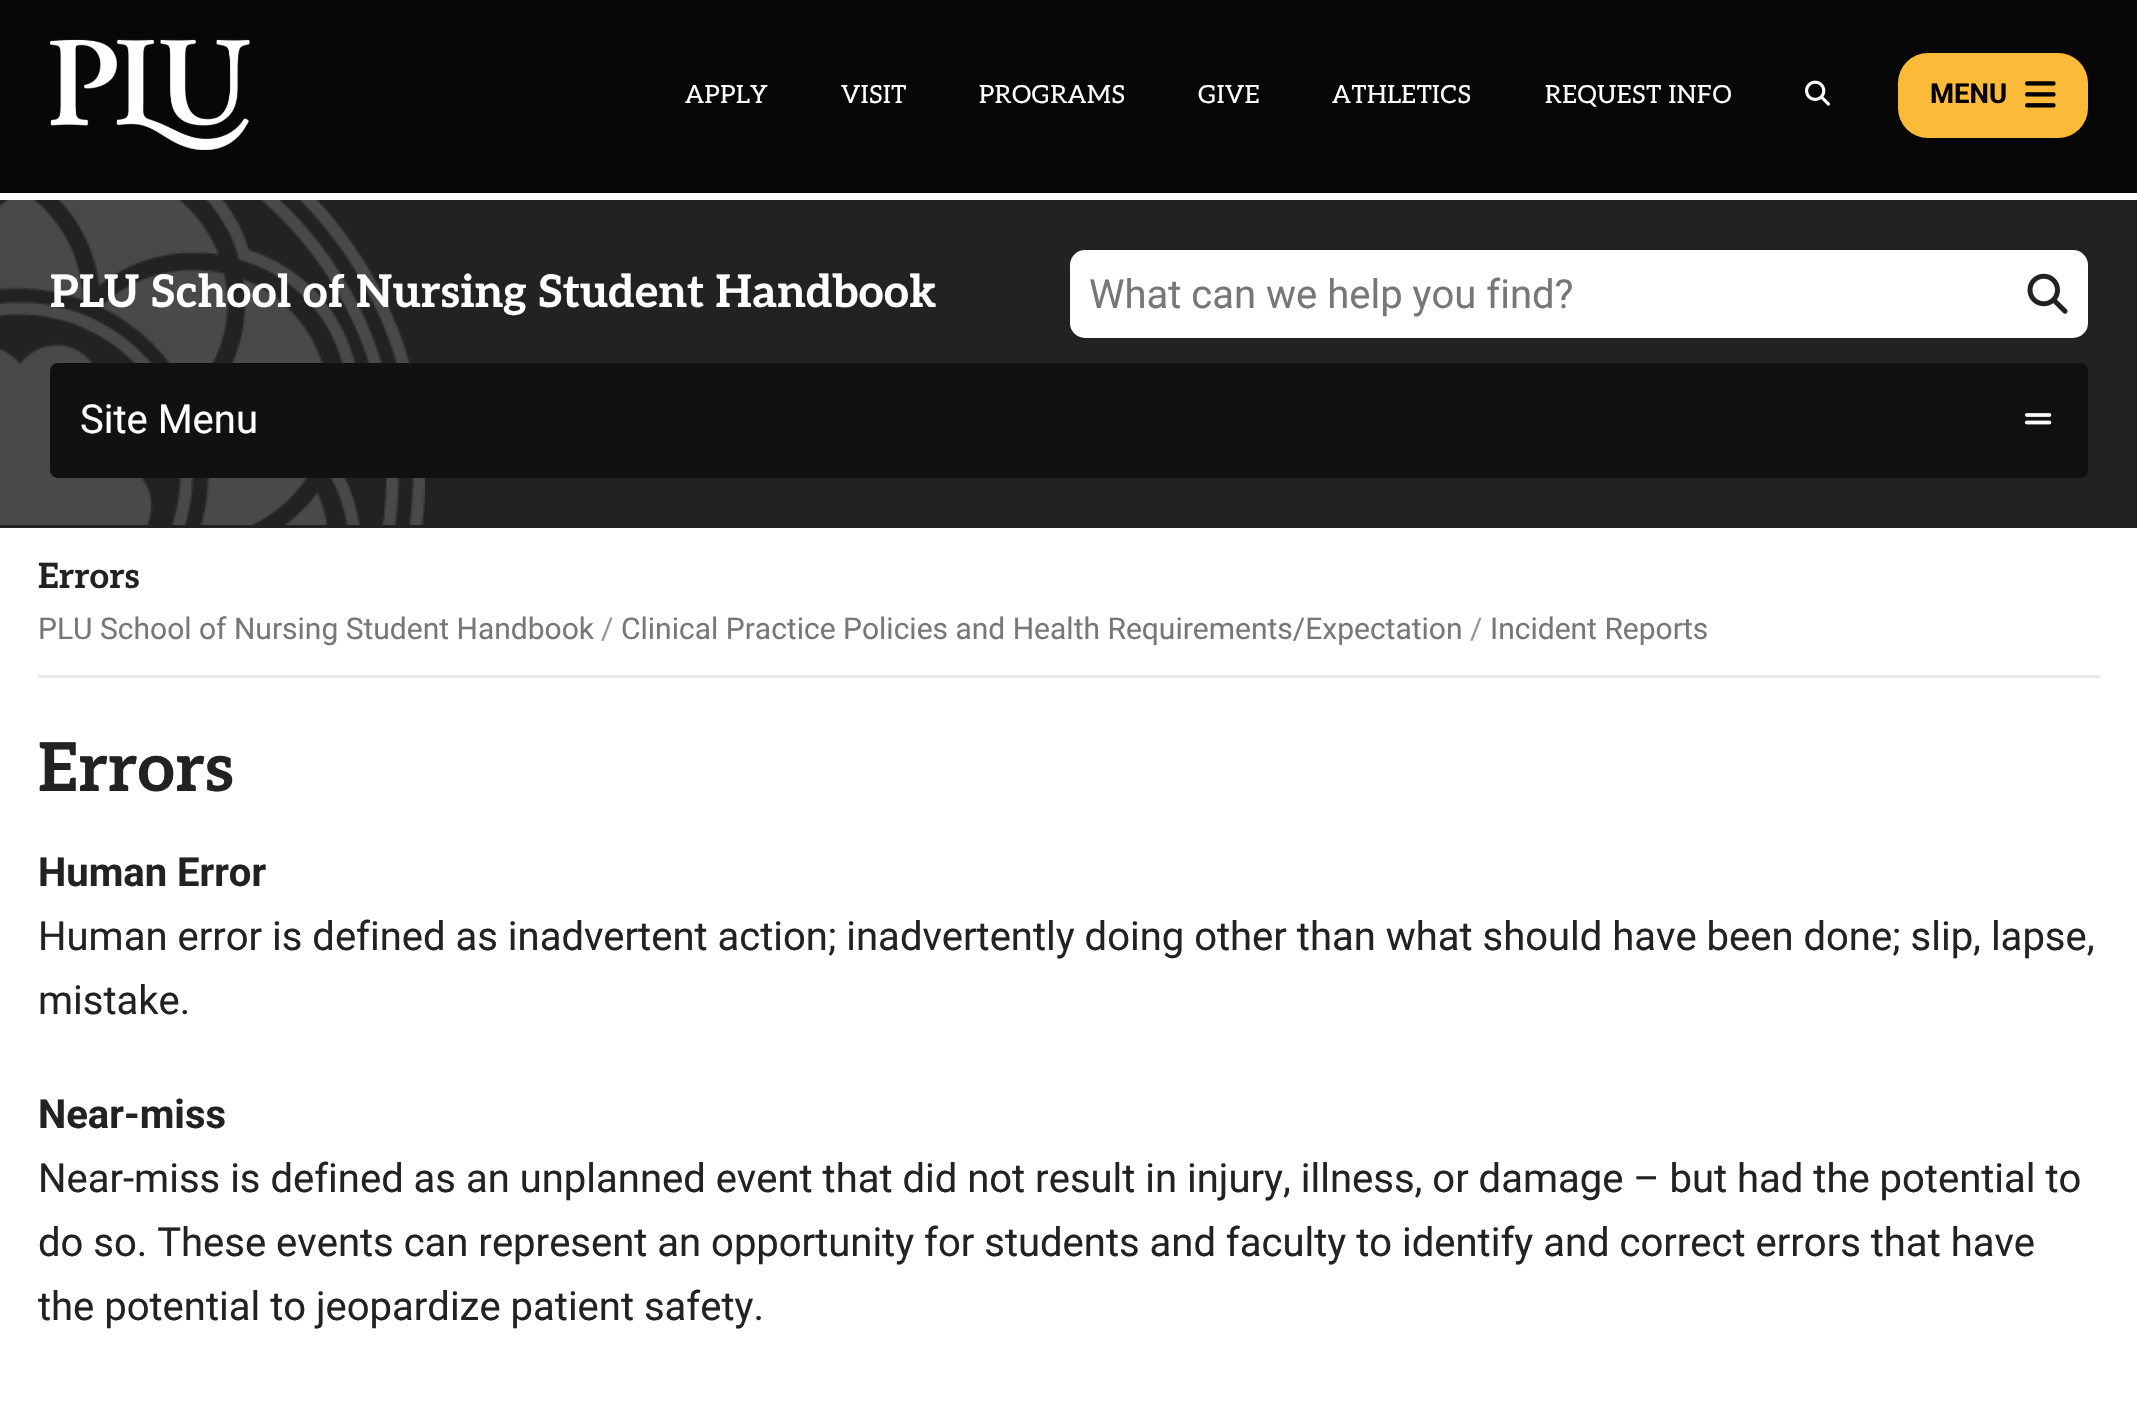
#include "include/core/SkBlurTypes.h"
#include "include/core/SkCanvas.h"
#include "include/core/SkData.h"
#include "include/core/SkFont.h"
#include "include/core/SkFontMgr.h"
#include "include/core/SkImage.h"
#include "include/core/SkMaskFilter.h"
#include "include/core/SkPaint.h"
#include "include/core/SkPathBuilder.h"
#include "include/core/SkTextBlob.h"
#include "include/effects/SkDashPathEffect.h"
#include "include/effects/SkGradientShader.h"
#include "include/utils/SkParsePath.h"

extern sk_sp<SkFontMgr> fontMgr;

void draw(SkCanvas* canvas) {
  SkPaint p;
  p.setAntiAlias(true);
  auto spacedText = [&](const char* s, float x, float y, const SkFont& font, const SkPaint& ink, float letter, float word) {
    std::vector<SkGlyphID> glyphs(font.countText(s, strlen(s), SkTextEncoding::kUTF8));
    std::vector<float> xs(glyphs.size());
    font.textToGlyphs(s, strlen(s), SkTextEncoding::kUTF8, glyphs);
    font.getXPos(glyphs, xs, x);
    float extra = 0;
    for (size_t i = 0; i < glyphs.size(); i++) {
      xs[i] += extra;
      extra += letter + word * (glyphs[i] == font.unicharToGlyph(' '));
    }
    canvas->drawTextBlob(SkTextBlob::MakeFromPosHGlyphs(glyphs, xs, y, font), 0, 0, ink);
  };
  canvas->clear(SK_ColorWHITE);
  p.setColor(SkColorSetRGB(7, 7, 7));
  canvas->drawRect(SkRect::MakeLTRB(0, 0, 2137, 193), p);
  canvas->drawImageRect(SkImages::DeferredFromEncodedData(SkData::MakeFromFileName("images/1.png")), SkRect::MakeLTRB(50, 39, 250, 150), SkSamplingOptions());
  canvas->drawImageRect(SkImages::DeferredFromEncodedData(SkData::MakeFromFileName("images/2.png")), SkRect::MakeLTRB(1805, 80, 1830, 106), SkSamplingOptions());
  p.setColor(SkColorSetRGB(251, 186, 55));
  canvas->drawRoundRect(SkRect::MakeLTRB(1898, 53, 2088, 138), 30, 30, p);
  canvas->drawImageRect(SkImages::DeferredFromEncodedData(SkData::MakeFromFileName("images/3.png")), SkRect::MakeLTRB(2025, 81, 2056, 108), SkSamplingOptions());
  p.setColor(SkColorSetRGB(34, 34, 34));
  canvas->drawRect(SkRect::MakeLTRB(0, 200, 2137, 528), p);
  canvas->drawImageRect(SkImages::DeferredFromEncodedData(SkData::MakeFromFileName("images/4.png")), SkRect::MakeLTRB(0, 200, 425, 525), SkSamplingOptions());
  p.setColor(SK_ColorWHITE);
  canvas->drawRoundRect(SkRect::MakeLTRB(1070, 250, 2088, 338), 15, 15, p);
  canvas->drawImageRect(SkImages::DeferredFromEncodedData(SkData::MakeFromFileName("images/5.png")), SkRect::MakeLTRB(2027, 273, 2068, 314), SkSamplingOptions());
  p.setColor(SkColorSetRGB(17, 17, 17));
  canvas->drawRoundRect(SkRect::MakeLTRB(50, 363, 2088, 478), 8, 8, p);
  canvas->drawImageRect(SkImages::DeferredFromEncodedData(SkData::MakeFromFileName("images/6.png")), SkRect::MakeLTRB(2025, 413, 2052, 425), SkSamplingOptions());
  p.setColor(SkColorSetRGB(232, 232, 232));
  canvas->drawRect(SkRect::MakeLTRB(38, 675, 2100, 678), p);
  SkFont font1(fontMgr->matchFamilyStyle("Aleo", SkFontStyle::Normal()), 25);
  font1.setSubpixel(true);
  p.setColor(SK_ColorWHITE);
  spacedText("APPLY", 685, 103, font1, p, 0.5f, 0);
  spacedText("VISIT", 841, 103, font1, p, 0.5f, 0);
  spacedText("PROGRAMS", 979, 103, font1, p, 0.5f, 0);
  spacedText("GIVE", 1198, 103, font1, p, 0.5f, 0);
  spacedText("ATHLETICS", 1332, 103, font1, p, 0.5f, 0);
  spacedText("REQUEST INFO", 1545, 103, font1, p, 0.5f, 0);
  SkFont font2(fontMgr->matchFamilyStyle("Roboto", SkFontStyle::Bold()), 27.5f);
  font2.setSubpixel(true);
  p.setColor(SK_ColorBLACK);
  canvas->drawString("MENU", 1930, 103, font2, p);
  SkFont font3(fontMgr->matchFamilyStyle("Aleo", SkFontStyle::Bold()), 45);
  font3.setSubpixel(true);
  p.setColor(SK_ColorWHITE);
  canvas->drawString("PLU School of Nursing Student Handbook", 50, 307, font3, p);
  SkFont font4(fontMgr->matchFamilyStyle("Roboto", SkFontStyle::Normal()), 40);
  font4.setSubpixel(true);
  p.setColor(SkColorSetRGB(119, 119, 119));
  canvas->drawString("What can we help you find?", 1089, 308, font4, p);
  p.setColor(SK_ColorWHITE);
  canvas->drawString("Site Menu", 80, 433, font4, p);
  SkFont font5(fontMgr->matchFamilyStyle("Aleo", SkFontStyle::Bold()), 35);
  font5.setSubpixel(true);
  p.setColor(SkColorSetRGB(34, 34, 34));
  canvas->drawString("Errors", 38, 588, font5, p);
  SkFont font6(fontMgr->matchFamilyStyle("Roboto", SkFontStyle::Normal()), 30);
  font6.setSubpixel(true);
  p.setColor(SkColorSetRGB(119, 119, 119));
  canvas->drawString("PLU School of Nursing Student Handbook", 38, 639, font6, p);
  p.setColor(SkColorSetRGB(153, 153, 153));
  canvas->drawString("/", 601, 639, font6, p);
  p.setColor(SkColorSetRGB(119, 119, 119));
  canvas->drawString("Clinical Practice Policies and Health Requirements/Expectation", 621, 639, font6, p);
  p.setColor(SkColorSetRGB(153, 153, 153));
  canvas->drawString("/", 1470, 639, font6, p);
  p.setColor(SkColorSetRGB(119, 119, 119));
  canvas->drawString("Incident Reports", 1490, 639, font6, p);
  SkFont font7(fontMgr->matchFamilyStyle("Aleo", SkFontStyle::Bold()), 67.5f);
  font7.setSubpixel(true);
  p.setColor(SkColorSetRGB(34, 34, 34));
  canvas->drawString("Errors", 38, 791, font7, p);
  SkFont font8(fontMgr->matchFamilyStyle("Roboto", SkFontStyle::Bold()), 40);
  font8.setSubpixel(true);
  canvas->drawString("Human Error", 38, 886, font8, p);
  canvas->drawString("Human error is defined as inadvertent action; inadvertently doing other than what should have been done; slip, lapse,", 38, 950, font4, p);
  canvas->drawString("mistake.", 38, 1014, font4, p);
  canvas->drawString("Near-miss", 38, 1128, font8, p);
  canvas->drawString("Near-miss is defined as an unplanned event that did not result in injury, illness, or damage – but had the potential to", 38, 1192, font4, p);
  canvas->drawString("do so. These events can represent an opportunity for students and faculty to identify and correct errors that have", 38, 1256, font4, p);
  canvas->drawString("the potential to jeopardize patient safety.", 38, 1320, font4, p);
}
